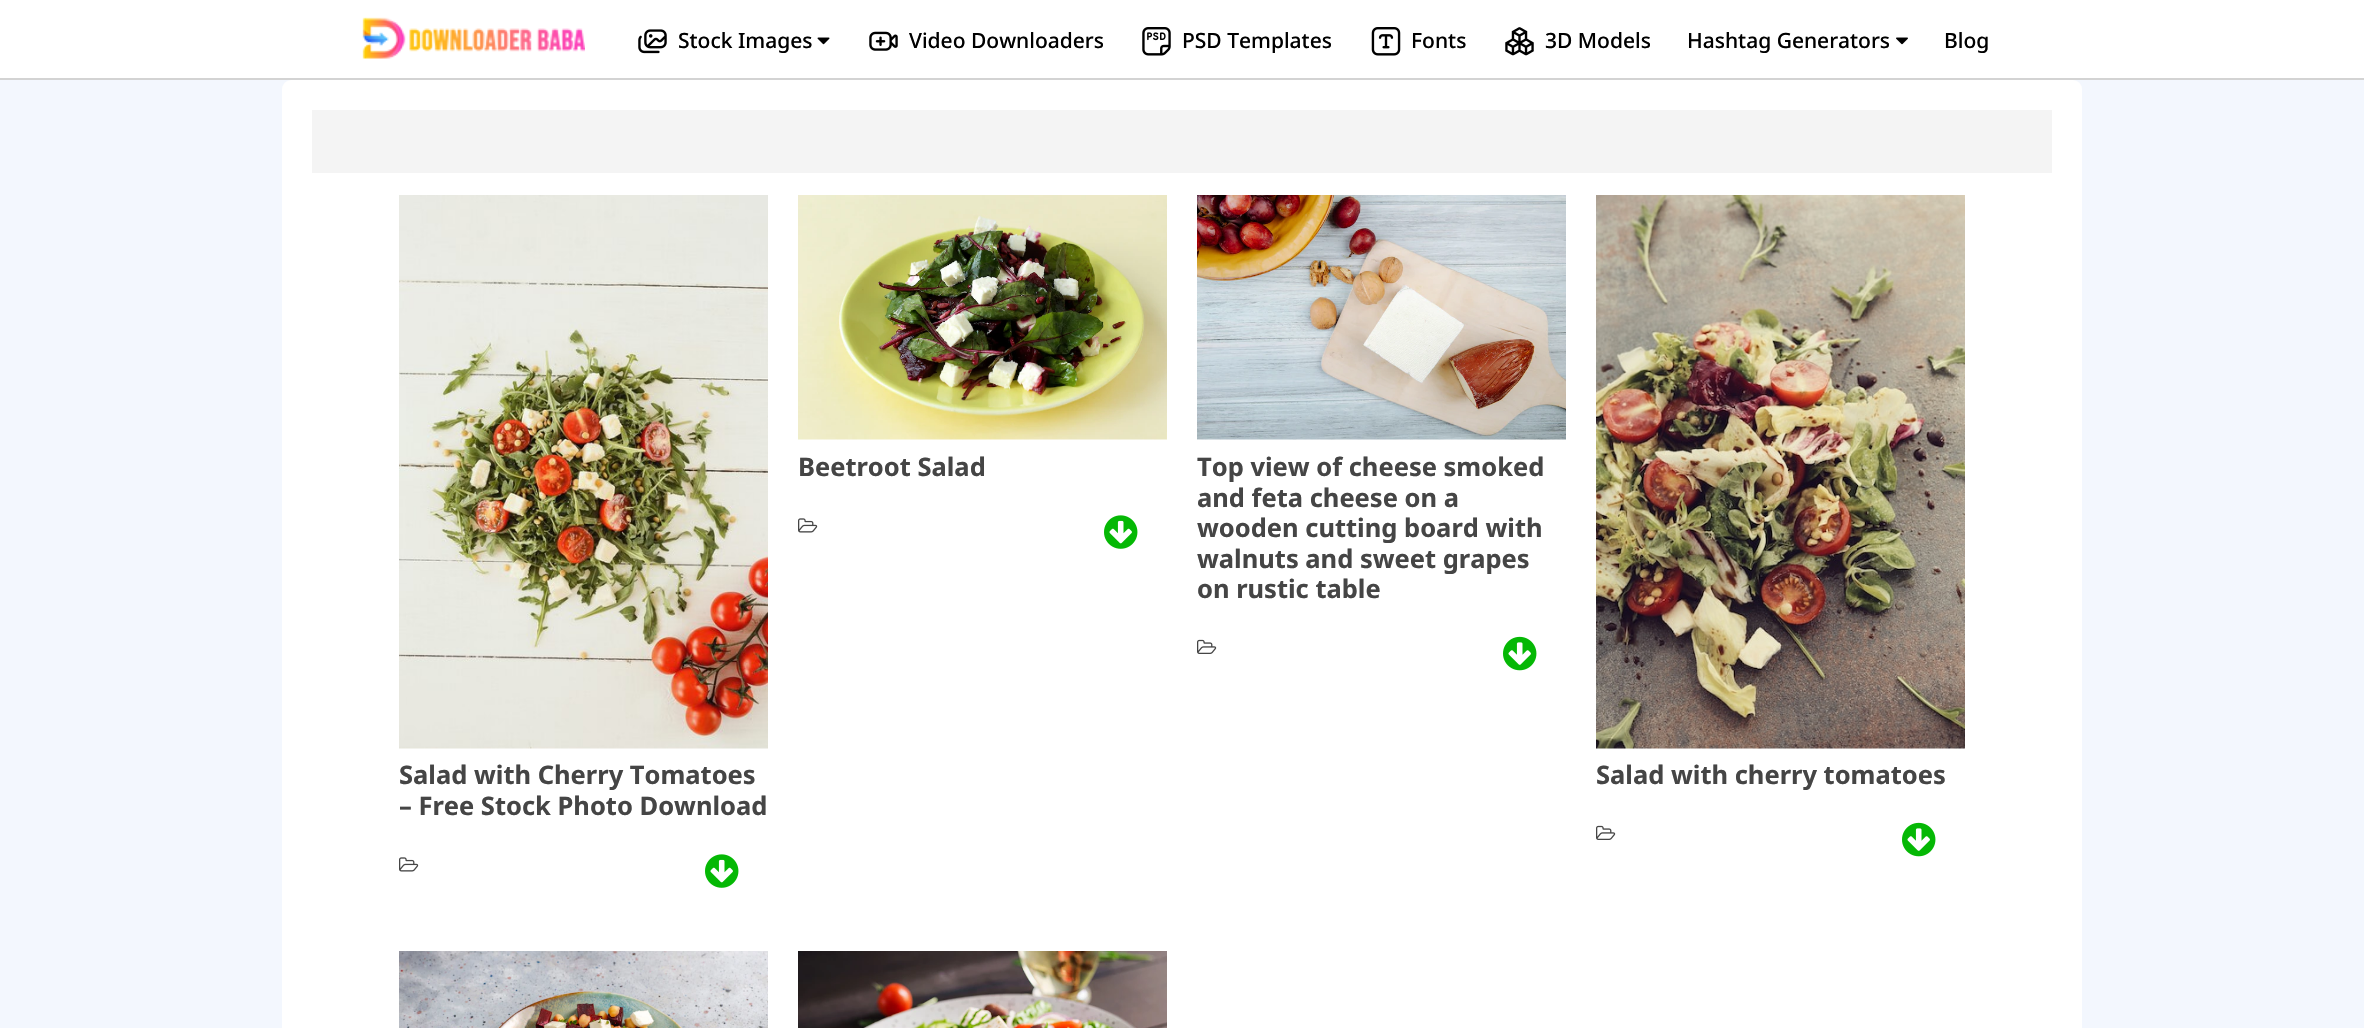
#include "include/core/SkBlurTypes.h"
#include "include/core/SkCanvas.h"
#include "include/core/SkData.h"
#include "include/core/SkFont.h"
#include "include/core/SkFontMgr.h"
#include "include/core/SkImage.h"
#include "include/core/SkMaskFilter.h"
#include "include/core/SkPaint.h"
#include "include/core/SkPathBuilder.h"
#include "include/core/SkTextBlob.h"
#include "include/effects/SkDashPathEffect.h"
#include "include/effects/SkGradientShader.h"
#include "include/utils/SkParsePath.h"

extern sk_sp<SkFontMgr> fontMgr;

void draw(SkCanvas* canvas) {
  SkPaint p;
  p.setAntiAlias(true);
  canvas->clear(SK_ColorWHITE);
  p.setColor(SkColorSetRGB(211, 211, 211));
  canvas->drawRect(SkRect::MakeLTRB(0, 78, 2364, 80), p);
  canvas->drawImageRect(SkImages::DeferredFromEncodedData(SkData::MakeFromFileName("images/1.png")), SkRect::MakeLTRB(362, 17, 585, 59), SkSamplingOptions());
  canvas->drawImageRect(SkImages::DeferredFromEncodedData(SkData::MakeFromFileName("images/2.png")), SkRect::MakeLTRB(638, 29, 667, 54), SkSamplingOptions());
  canvas->drawImageRect(SkImages::DeferredFromEncodedData(SkData::MakeFromFileName("images/3.png")), SkRect::MakeLTRB(817, 37, 830, 45), SkSamplingOptions());
  canvas->drawImageRect(SkImages::DeferredFromEncodedData(SkData::MakeFromFileName("images/4.png")), SkRect::MakeLTRB(869, 31, 898, 51), SkSamplingOptions());
  canvas->drawImageRect(SkImages::DeferredFromEncodedData(SkData::MakeFromFileName("images/5.png")), SkRect::MakeLTRB(1142, 27, 1171, 56), SkSamplingOptions());
  canvas->drawImageRect(SkImages::DeferredFromEncodedData(SkData::MakeFromFileName("images/6.png")), SkRect::MakeLTRB(1371, 27, 1401, 56), SkSamplingOptions());
  canvas->drawImageRect(SkImages::DeferredFromEncodedData(SkData::MakeFromFileName("images/7.png")), SkRect::MakeLTRB(1505, 27, 1534, 56), SkSamplingOptions());
  canvas->drawImageRect(SkImages::DeferredFromEncodedData(SkData::MakeFromFileName("images/8.png")), SkRect::MakeLTRB(1896, 37, 1908, 45), SkSamplingOptions());
  p.setColor(SkColorSetRGB(243, 247, 254));
  canvas->drawRect(SkRect::MakeLTRB(0, 80, 2364, 1028), p);
  p.setColor(SK_ColorWHITE);
  canvas->drawRoundRect(SkRect::MakeLTRB(282, 80, 2082, 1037), 9, 9, p);
  p.setColor(SkColorSetRGB(244, 244, 244));
  canvas->drawRect(SkRect::MakeLTRB(312, 110, 2052, 173), p);
  canvas->drawImageRect(SkImages::DeferredFromEncodedData(SkData::MakeFromFileName("images/9.png")), SkRect::MakeLTRB(798, 195, 1167, 440), SkSamplingOptions());
  canvas->drawImageRect(SkImages::DeferredFromEncodedData(SkData::MakeFromFileName("images/10.png")), SkRect::MakeLTRB(798, 518, 818, 533), SkSamplingOptions());
  canvas->drawImageRect(SkImages::DeferredFromEncodedData(SkData::MakeFromFileName("images/11.png")), SkRect::MakeLTRB(1104, 515, 1138, 549), SkSamplingOptions());
  canvas->drawImageRect(SkImages::DeferredFromEncodedData(SkData::MakeFromFileName("images/12.png")), SkRect::MakeLTRB(1197, 195, 1566, 440), SkSamplingOptions());
  canvas->drawImageRect(SkImages::DeferredFromEncodedData(SkData::MakeFromFileName("images/13.png")), SkRect::MakeLTRB(1197, 639, 1217, 654), SkSamplingOptions());
  canvas->drawImageRect(SkImages::DeferredFromEncodedData(SkData::MakeFromFileName("images/14.png")), SkRect::MakeLTRB(1503, 636, 1537, 671), SkSamplingOptions());
  canvas->drawImageRect(SkImages::DeferredFromEncodedData(SkData::MakeFromFileName("images/15.png")), SkRect::MakeLTRB(399, 195, 768, 749), SkSamplingOptions());
  canvas->drawImageRect(SkImages::DeferredFromEncodedData(SkData::MakeFromFileName("images/10.png")), SkRect::MakeLTRB(399, 857, 419, 872), SkSamplingOptions());
  canvas->drawImageRect(SkImages::DeferredFromEncodedData(SkData::MakeFromFileName("images/11.png")), SkRect::MakeLTRB(705, 854, 739, 888), SkSamplingOptions());
  canvas->drawImageRect(SkImages::DeferredFromEncodedData(SkData::MakeFromFileName("images/16.png")), SkRect::MakeLTRB(1596, 195, 1965, 749), SkSamplingOptions());
  canvas->drawImageRect(SkImages::DeferredFromEncodedData(SkData::MakeFromFileName("images/13.png")), SkRect::MakeLTRB(1596, 825, 1616, 840), SkSamplingOptions());
  canvas->drawImageRect(SkImages::DeferredFromEncodedData(SkData::MakeFromFileName("images/14.png")), SkRect::MakeLTRB(1902, 822, 1936, 857), SkSamplingOptions());
  canvas->drawImageRect(SkImages::DeferredFromEncodedData(SkData::MakeFromFileName("images/17.png")), SkRect::MakeLTRB(399, 951, 768, 1028), SkSamplingOptions());
  canvas->drawImageRect(SkImages::DeferredFromEncodedData(SkData::MakeFromFileName("images/18.png")), SkRect::MakeLTRB(798, 951, 1167, 1028), SkSamplingOptions());
  SkFont font1(fontMgr->matchFamilyStyle("Noto Sans", SkFontStyle(500, SkFontStyle::kNormal_Width, SkFontStyle::kUpright_Slant)), 21);
  font1.setSubpixel(true);
  p.setColor(SK_ColorBLACK);
  canvas->drawString("Stock Images", 678, 48, font1, p);
  canvas->drawString("Video Downloaders", 909, 48, font1, p);
  canvas->drawString("PSD Templates", 1182, 48, font1, p);
  canvas->drawString("Fonts", 1411, 48, font1, p);
  canvas->drawString("3D Models", 1545, 48, font1, p);
  canvas->drawString("Hashtag Generators", 1687, 48, font1, p);
  canvas->drawString("Blog", 1944, 48, font1, p);
  SkFont font2(fontMgr->matchFamilyStyle("Noto Sans", SkFontStyle::Bold()), 25.5f);
  font2.setSubpixel(true);
  p.setColor(SkColorSetRGB(69, 69, 69));
  canvas->drawString("Beetroot Salad", 798, 476, font2, p);
  canvas->drawString("Top view of cheese smoked", 1197, 476, font2, p);
  canvas->drawString("and feta cheese on a", 1197, 507, font2, p);
  canvas->drawString("wooden cutting board with", 1197, 537, font2, p);
  canvas->drawString("walnuts and sweet grapes", 1197, 568, font2, p);
  canvas->drawString("on rustic table", 1197, 598, font2, p);
  canvas->drawString("Salad with Cherry Tomatoes", 399, 784, font2, p);
  canvas->drawString("– Free Stock Photo Download", 399, 815, font2, p);
  canvas->drawString("Salad with cherry tomatoes", 1596, 784, font2, p);
}
